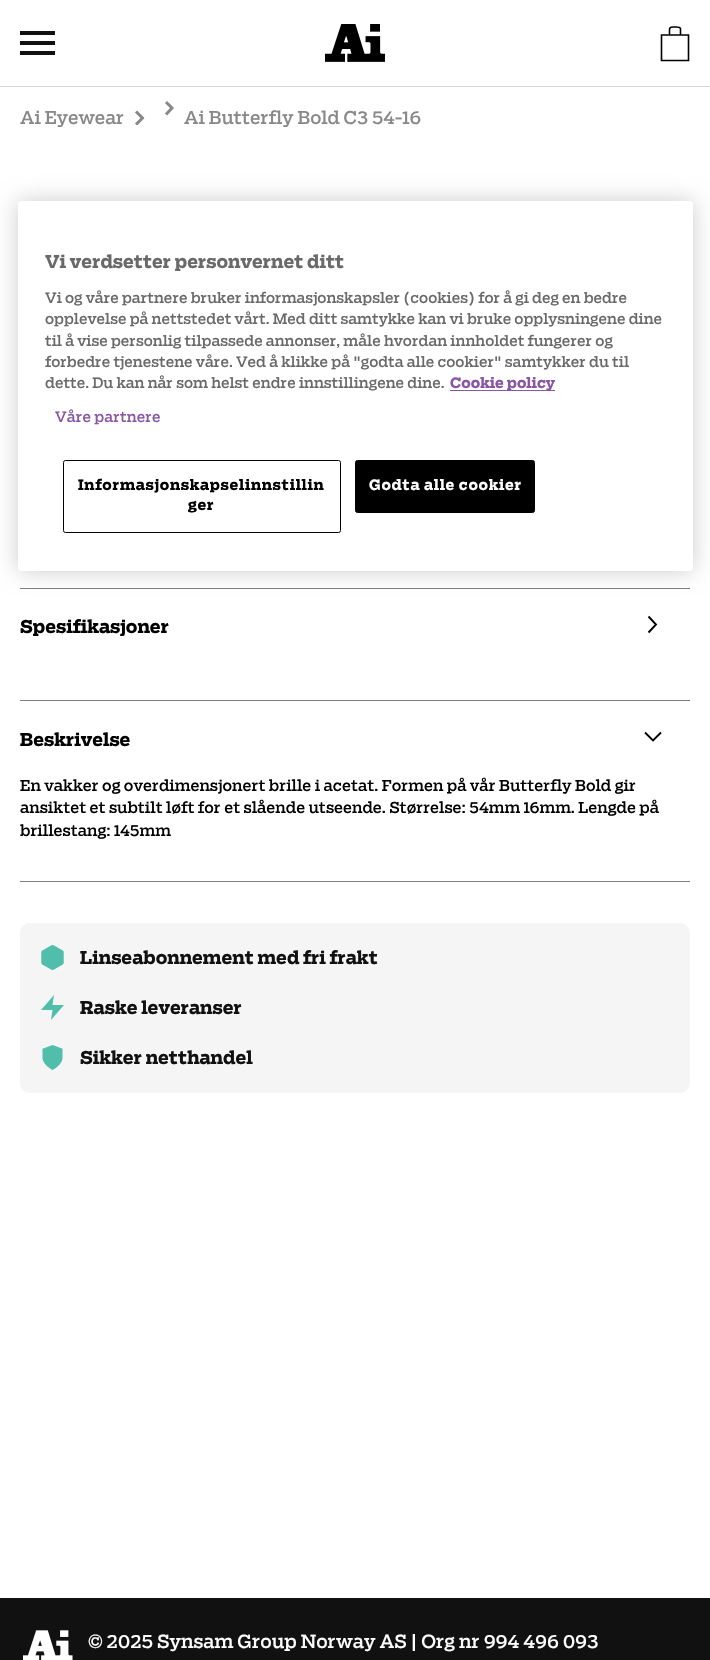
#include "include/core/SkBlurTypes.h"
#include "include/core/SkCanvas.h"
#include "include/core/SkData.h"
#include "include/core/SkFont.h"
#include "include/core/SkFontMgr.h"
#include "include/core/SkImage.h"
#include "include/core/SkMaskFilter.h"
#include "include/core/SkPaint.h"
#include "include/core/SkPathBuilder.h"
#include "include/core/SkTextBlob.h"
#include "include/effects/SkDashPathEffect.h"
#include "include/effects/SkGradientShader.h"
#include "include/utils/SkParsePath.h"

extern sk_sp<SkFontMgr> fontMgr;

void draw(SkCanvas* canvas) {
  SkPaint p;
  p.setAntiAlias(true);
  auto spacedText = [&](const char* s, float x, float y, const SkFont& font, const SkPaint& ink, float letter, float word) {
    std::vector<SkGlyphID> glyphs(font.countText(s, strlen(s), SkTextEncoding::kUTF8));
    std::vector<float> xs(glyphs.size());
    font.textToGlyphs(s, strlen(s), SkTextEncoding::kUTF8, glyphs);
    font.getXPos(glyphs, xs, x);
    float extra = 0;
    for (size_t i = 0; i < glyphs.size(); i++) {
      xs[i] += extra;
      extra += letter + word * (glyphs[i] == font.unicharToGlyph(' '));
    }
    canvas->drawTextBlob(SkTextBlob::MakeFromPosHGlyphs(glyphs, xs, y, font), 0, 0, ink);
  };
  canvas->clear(SK_ColorWHITE);
  p.setColor(SkColorSetRGB(211, 211, 211));
  canvas->drawRect(SkRect::MakeLTRB(0, 86, 710, 87), p);
  p.setColor(SkColorSetRGB(17, 17, 17));
  canvas->drawRect(SkRect::MakeLTRB(20, 31, 55, 35), p);
  canvas->drawRect(SkRect::MakeLTRB(20, 41, 55, 45), p);
  canvas->drawRect(SkRect::MakeLTRB(20, 51, 55, 55), p);
  canvas->drawImageRect(SkImages::DeferredFromEncodedData(SkData::MakeFromFileName("images/1.png")), SkRect::MakeLTRB(325, 24, 385, 62), SkSamplingOptions());
  p.setStyle(SkPaint::kStroke_Style);
  p.setStrokeWidth(1.6f);
  p.setColor(SK_ColorBLACK);
  canvas->drawPath(SkPathBuilder().moveTo(661.5f, 35).lineTo(688.5f, 35).lineTo(688.5f, 60.5f).lineTo(661.5f, 60.5f).close().moveTo(669.5f, 29.5f).cubicTo(669.5f, 26.5f, 673, 27, 675, 27).cubicTo(676.5f, 27, 679.5f, 26.5f, 680.5f, 28.5f).lineTo(680.5f, 35).lineTo(669.5f, 35).close().detach(), p);
  p.setStrokeWidth(3);
  p.setColor(SkColorSetRGB(136, 136, 136));
  canvas->drawPath(SkPathBuilder().moveTo(166, 102).lineTo(172, 108).lineTo(166, 114.5f).detach(), p);
  canvas->save();
  canvas->clipPath(SkPathBuilder().moveTo(134, 125).lineTo(134, 110).lineTo(144.5f, 110).lineTo(144.5f, 125).close().detach(), true);
  canvas->drawPath(SkPathBuilder().moveTo(136, 111.5f).lineTo(142.5f, 118).lineTo(136, 124.5f).detach(), p);
  canvas->restore();
  p.setStyle(SkPaint::kFill_Style);
  p.setColor(SkColorSetRGB(128, 128, 128));
  canvas->drawRect(SkRect::MakeLTRB(20, 588, 690, 589), p);
  p.setStyle(SkPaint::kStroke_Style);
  p.setStrokeWidth(1.9f);
  p.setColor(SK_ColorBLACK);
  canvas->drawPath(SkPathBuilder().moveTo(648.5f, 616.5f).lineTo(656, 624.5f).lineTo(648.5f, 632.5f).detach(), p);
  p.setStyle(SkPaint::kFill_Style);
  p.setColor(SkColorSetRGB(128, 128, 128));
  canvas->drawRect(SkRect::MakeLTRB(20, 700, 690, 701), p);
  canvas->drawRect(SkRect::MakeLTRB(20, 881, 690, 882), p);
  p.setStyle(SkPaint::kStroke_Style);
  p.setColor(SK_ColorBLACK);
  canvas->drawPath(SkPathBuilder().moveTo(661, 732.5f).lineTo(653, 740.5f).lineTo(645, 732.5f).detach(), p);
  p.setStyle(SkPaint::kFill_Style);
  p.setColor(SkColorSetRGB(245, 245, 245));
  canvas->drawRoundRect(SkRect::MakeLTRB(20, 923, 690, 1093), 10, 10, p);
  canvas->drawImageRect(SkImages::DeferredFromEncodedData(SkData::MakeFromFileName("images/2.png")), SkRect::MakeLTRB(41, 945, 64, 970), SkSamplingOptions());
  p.setColor(SkColorSetRGB(81, 190, 172));
  canvas->drawPath(SkPathBuilder(SkPathFillType::kEvenOdd).moveTo(54, 995).lineTo(41, 1010).lineTo(52.5f, 1010).lineTo(51, 1020).lineTo(64, 1005).lineTo(52.5f, 1005).close().detach(), p);
  canvas->drawImageRect(SkImages::DeferredFromEncodedData(SkData::MakeFromFileName("images/3.png")), SkRect::MakeLTRB(42, 1045, 63, 1070), SkSamplingOptions());
  p.setColor(SkColorSetRGB(17, 17, 17));
  canvas->drawRect(SkRect::MakeLTRB(0, 1598, 710, 1660), p);
  canvas->drawImageRect(SkImages::DeferredFromEncodedData(SkData::MakeFromFileName("images/4.png")), SkRect::MakeLTRB(23, 1630, 73, 1660), SkSamplingOptions());
  p.setColor(SkColorSetARGB(51, 0, 0, 0));
  p.setMaskFilter(SkMaskFilter::MakeBlur(kNormal_SkBlurStyle, 11));
  canvas->drawRoundRect(SkRect::MakeLTRB(18, 201, 693, 571), 3, 3, p);
  p.setMaskFilter(nullptr);
  p.setColor(SK_ColorWHITE);
  canvas->drawRoundRect(SkRect::MakeLTRB(18, 201, 693, 571), 3, 3, p);
  p.setColor(SkColorSetRGB(136, 86, 162));
  canvas->drawRect(SkRect::MakeLTRB(450, 390, 555, 391), p);
  p.setStyle(SkPaint::kStroke_Style);
  p.setStrokeWidth(1);
  p.setColor(SK_ColorBLACK);
  canvas->drawRoundRect(SkRect::MakeLTRB(63.5f, 460.5f, 340.5f, 532.5f), 2, 2, p);
  p.setStyle(SkPaint::kFill_Style);
  canvas->drawRoundRect(SkRect::MakeLTRB(355.5f, 460.5f, 534.5f, 512.5f), 2, 2, p);
  p.setStyle(SkPaint::kStroke_Style);
  canvas->drawRoundRect(SkRect::MakeLTRB(355.5f, 460.5f, 534.5f, 512.5f), 2, 2, p);
  SkFont font1(fontMgr->matchFamilyStyle("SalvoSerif", SkFontStyle::Normal()), 17.5f);
  font1.setSubpixel(true);
  p.setStyle(SkPaint::kFill_Style);
  p.setColor(SkColorSetRGB(136, 136, 136));
  canvas->drawString("Ai Eyewear", 20, 124, font1, p);
  canvas->drawString("Ai Butterfly Bold C3 54-16", 184, 124, font1, p);
  SkFont font2(fontMgr->matchFamilyStyle("SalvoSerif", SkFontStyle::Bold()), 17.5f);
  font2.setSubpixel(true);
  p.setColor(SK_ColorBLACK);
  canvas->drawString("Spesifikasjoner", 20, 633, font2, p);
  canvas->drawString("Beskrivelse", 20, 746, font2, p);
  SkFont font3(fontMgr->matchFamilyStyle("SalvoSerif", SkFontStyle::Normal()), 15);
  font3.setSubpixel(true);
  canvas->drawString("En vakker og overdimensjonert brille i acetat. Formen på vår Butterfly Bold gir", 20, 791, font3, p);
  canvas->drawString("ansiktet et subtilt løft for et slående utseende. Størrelse: 54mm 16mm. Lengde på", 20, 813, font3, p);
  canvas->drawString("brillestang: 145mm", 20, 836, font3, p);
  p.setColor(SkColorSetRGB(17, 17, 17));
  canvas->drawString("Linseabonnement med fri frakt", 80, 964, font2, p);
  canvas->drawString("Raske leveranser", 80, 1014, font2, p);
  canvas->drawString("Sikker netthandel", 80, 1064, font2, p);
  SkFont font4(fontMgr->matchFamilyStyle("SalvoSerif", SkFontStyle::Normal()), 18);
  font4.setSubpixel(true);
  p.setColor(SK_ColorWHITE);
  canvas->drawString("© 2025 Synsam Group Norway AS | Org nr 994 496 093", 88, 1648, font4, p);
  p.setColor(SkColorSetRGB(105, 105, 105));
  canvas->drawString("Vi verdsetter personvernet ditt", 45, 268, font2, p);
  SkFont font5(fontMgr->matchFamilyStyle("SalvoSerif", SkFontStyle::Normal()), 14.25f);
  font5.setSubpixel(true);
  canvas->drawString("Vi og våre partnere bruker informasjonskapsler (cookies) for å gi deg en bedre", 45, 303, font5, p);
  canvas->drawString("opplevelse på nettstedet vårt. Med ditt samtykke kan vi bruke opplysningene dine", 45, 324, font5, p);
  canvas->drawString("til å vise personlig tilpassede annonser, måle hvordan innholdet fungerer og", 45, 346, font5, p);
  canvas->drawString("forbedre tjenestene våre. Ved å klikke på \"godta alle cookier\" samtykker du til", 45, 367, font5, p);
  canvas->drawString("dette. Du kan når som helst endre innstillingene dine.", 45, 388, font5, p);
  SkFont font6(fontMgr->matchFamilyStyle("SalvoSerif", SkFontStyle::Bold()), 14.25f);
  font6.setSubpixel(true);
  p.setColor(SkColorSetRGB(136, 86, 162));
  canvas->drawString("Cookie policy", 450, 388, font6, p);
  spacedText("Våre partnere", 55, 422, font5, p, 0.1f, 0);
  p.setColor(SK_ColorBLACK);
  spacedText("Informasjonskapselinnstillin", 78, 490, font6, p, 0.7f, 0);
  spacedText("ger", 188, 510, font6, p, 0.7f, 0);
  p.setColor(SK_ColorWHITE);
  spacedText("Godta alle cookier", 369, 490, font6, p, 0.7f, 0);
}
